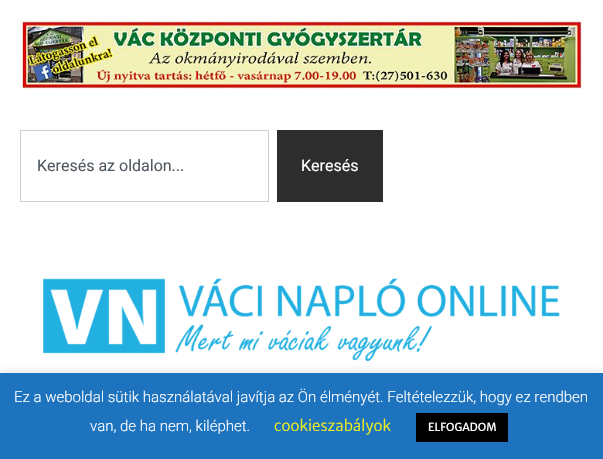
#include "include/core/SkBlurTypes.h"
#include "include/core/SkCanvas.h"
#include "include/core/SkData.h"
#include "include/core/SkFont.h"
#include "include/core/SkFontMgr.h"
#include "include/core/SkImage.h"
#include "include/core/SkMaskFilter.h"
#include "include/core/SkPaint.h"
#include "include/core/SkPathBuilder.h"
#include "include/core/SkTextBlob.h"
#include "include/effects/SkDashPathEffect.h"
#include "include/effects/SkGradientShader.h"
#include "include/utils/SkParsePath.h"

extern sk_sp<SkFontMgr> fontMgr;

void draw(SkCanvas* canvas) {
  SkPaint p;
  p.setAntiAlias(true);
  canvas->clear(SK_ColorWHITE);
  canvas->drawImageRect(SkImages::DeferredFromEncodedData(SkData::MakeFromFileName("images/1.png")), SkRect::MakeLTRB(20, 20, 583, 90), SkSamplingOptions());
  p.setStyle(SkPaint::kStroke_Style);
  p.setStrokeWidth(1);
  p.setColor(SkColorSetRGB(205, 205, 205));
  canvas->drawRect(SkRect::MakeLTRB(20.5f, 130.5f, 268.5f, 201.5f), p);
  p.setStyle(SkPaint::kFill_Style);
  p.setColor(SkColorSetRGB(45, 45, 45));
  canvas->drawRect(SkRect::MakeLTRB(277, 130, 383, 202), p);
  canvas->drawImageRect(SkImages::DeferredFromEncodedData(SkData::MakeFromFileName("images/2.png")), SkRect::MakeLTRB(42, 278, 560, 362), SkSamplingOptions());
  p.setColor(SkColorSetARGB(77, 172, 171, 171));
  p.setMaskFilter(SkMaskFilter::MakeBlur(kNormal_SkBlurStyle, 5));
  canvas->drawRect(SkRect::MakeLTRB(0, 372, 603, 458), p);
  p.setMaskFilter(nullptr);
  p.setColor(SkColorSetRGB(30, 115, 190));
  canvas->drawRect(SkRect::MakeLTRB(0, 373, 603, 459), p);
  p.setColor(SK_ColorBLACK);
  canvas->drawRect(SkRect::MakeLTRB(416, 413, 508, 442), p);
  SkFont font1(fontMgr->matchFamilyStyle("Roboto", SkFontStyle::Normal()), 16);
  font1.setSubpixel(true);
  p.setColor(SkColorSetRGB(81, 89, 98));
  canvas->drawString("Keresés az oldalon...", 37, 171, font1, p);
  p.setColor(SK_ColorWHITE);
  canvas->drawString("Keresés", 301, 171, font1, p);
  SkFont font2(fontMgr->matchFamilyStyle("Roboto", SkFontStyle(300, SkFontStyle::kNormal_Width, SkFontStyle::kUpright_Slant)), 15);
  font2.setSubpixel(true);
  canvas->drawString("Ez a weboldal sütik használatával javítja az Ön élményét. Feltételezzük, hogy ez rendben", 14, 402, font2, p);
  canvas->drawString("van, de ha nem, kiléphet.", 90, 431, font2, p);
  SkFont font3(fontMgr->matchFamilyStyle("Merriweather Sans", SkFontStyle(300, SkFontStyle::kNormal_Width, SkFontStyle::kUpright_Slant)), 15);
  font3.setSubpixel(true);
  p.setColor(SkColorSetRGB(238, 238, 34));
  canvas->drawString("cookieszabályok", 274, 431, font3, p);
  SkFont font4(fontMgr->matchFamilyStyle("Merriweather Sans", SkFontStyle::Normal()), 11);
  font4.setSubpixel(true);
  p.setColor(SK_ColorWHITE);
  canvas->drawString("ELFOGADOM", 428, 431, font4, p);
}
